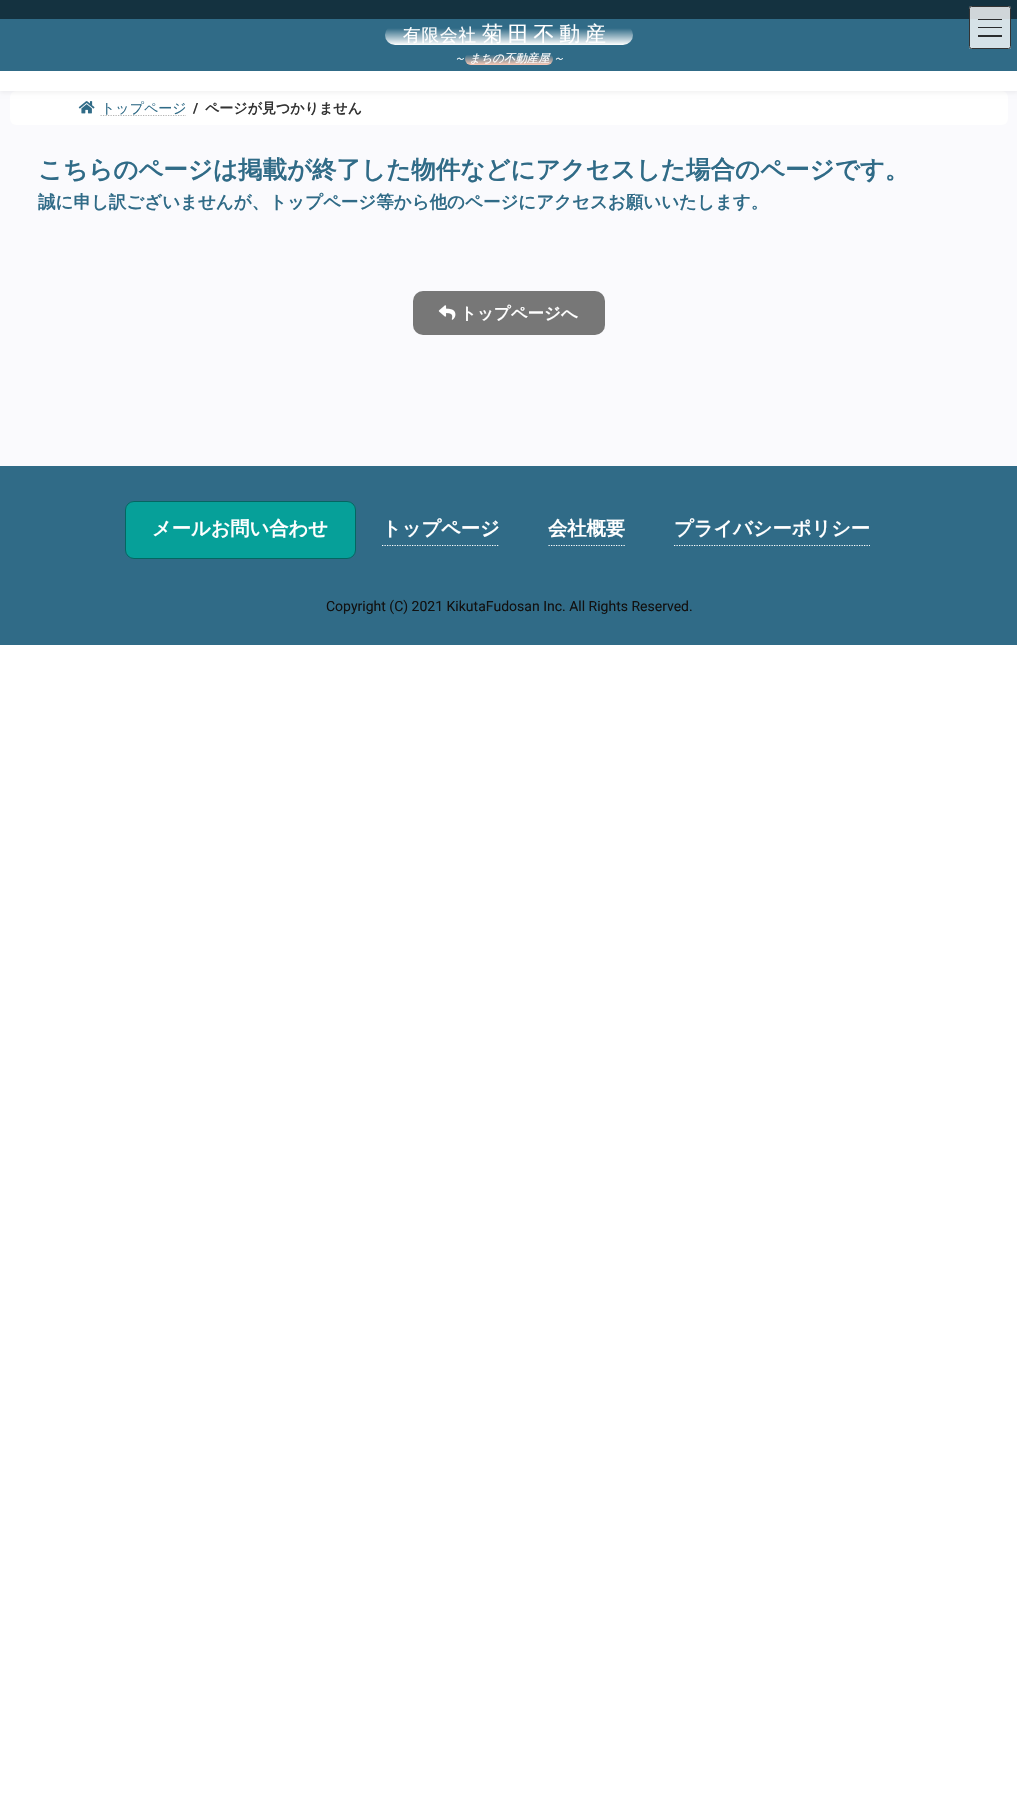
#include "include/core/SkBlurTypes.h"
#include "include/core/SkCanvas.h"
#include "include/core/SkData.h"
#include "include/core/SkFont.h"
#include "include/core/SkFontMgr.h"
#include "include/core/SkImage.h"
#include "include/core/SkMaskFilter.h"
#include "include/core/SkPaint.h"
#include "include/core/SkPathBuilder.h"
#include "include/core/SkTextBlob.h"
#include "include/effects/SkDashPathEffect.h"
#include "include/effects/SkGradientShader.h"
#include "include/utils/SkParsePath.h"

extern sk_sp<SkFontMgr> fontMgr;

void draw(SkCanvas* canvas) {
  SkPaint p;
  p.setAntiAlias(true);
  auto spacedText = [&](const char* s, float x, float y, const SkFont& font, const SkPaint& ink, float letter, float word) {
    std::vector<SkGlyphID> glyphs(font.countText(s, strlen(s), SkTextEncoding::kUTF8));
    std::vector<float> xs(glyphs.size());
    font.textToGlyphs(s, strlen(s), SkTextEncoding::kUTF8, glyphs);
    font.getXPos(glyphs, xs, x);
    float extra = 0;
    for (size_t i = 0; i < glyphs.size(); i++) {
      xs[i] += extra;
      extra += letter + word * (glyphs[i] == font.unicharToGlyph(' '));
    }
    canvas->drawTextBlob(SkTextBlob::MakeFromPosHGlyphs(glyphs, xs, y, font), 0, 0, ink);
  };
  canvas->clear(SK_ColorWHITE);
  p.setColor(SkColorSetRGB(250, 250, 253));
  canvas->drawRect(SkRect::MakeLTRB(0, 91, 1017, 466), p);
  p.setColor(SK_ColorWHITE);
  canvas->drawRoundRect(SkRect::MakeLTRB(10, 91, 1008, 125), 6, 6, p);
  p.setColor(SkColorSetARGB(13, 0, 0, 0));
  p.setMaskFilter(SkMaskFilter::MakeBlur(kNormal_SkBlurStyle, 2));
  canvas->drawRect(SkRect::MakeLTRB(0, 1, 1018, 93), p);
  p.setMaskFilter(nullptr);
  p.setColor(SkColorSetRGB(48, 107, 135));
  canvas->drawRect(SkRect::MakeLTRB(0, 19, 1017, 71), p);
  p.setColor(SkColorSetRGB(20, 50, 64));
  canvas->drawRect(SkRect::MakeLTRB(0, 0, 1017, 19), p);
  {
    const SkColor colors[] = {SkColorSetRGB(48, 107, 135), SK_ColorWHITE};
    const float stops[] = {0.2f, 1};
    const SkPoint ends[] = {{509, 24}, {509, 45}};
    p.setShader(SkGradientShader::MakeLinear(ends, colors, stops, 2, SkTileMode::kClamp));
    p.setAlpha(255);
  }
  canvas->drawRoundRect(SkRect::MakeLTRB(385, 25, 633, 45), 10, 10, p);
  {
    const SkColor colors[] = {SkColorSetRGB(48, 107, 135), SkColorSetRGB(255, 203, 182)};
    const float stops[] = {0.2f, 1};
    const SkPoint ends[] = {{509, 52}, {509, 65}};
    p.setShader(SkGradientShader::MakeLinear(ends, colors, stops, 2, SkTileMode::kClamp));
    p.setAlpha(255);
  }
  canvas->drawRoundRect(SkRect::MakeLTRB(465, 53, 553, 65), 6, 6, p);
  p.setShader(nullptr);
  p.setColor(SK_ColorWHITE);
  canvas->drawRect(SkRect::MakeLTRB(0, 71, 1017, 91), p);
  p.setColor(SkColorSetARGB(204, 255, 255, 255));
  canvas->drawRoundRect(SkRect::MakeLTRB(969, 6, 1011, 49), 2.5f, 2.5f, p);
  p.setColor(SkColorSetRGB(43, 45, 46));
  canvas->drawRect(SkRect::MakeLTRB(978, 19, 1002, 20), p);
  canvas->drawRect(SkRect::MakeLTRB(978, 27, 1002, 28), p);
  canvas->drawRect(SkRect::MakeLTRB(978, 35, 1002, 37), p);
  p.setStyle(SkPaint::kStroke_Style);
  p.setStrokeWidth(1);
  p.setColor(SkColorSetRGB(51, 51, 51));
  canvas->drawRoundRect(SkRect::MakeLTRB(969.5f, 6.5f, 1010.5f, 48.5f), 2, 2, p);
  canvas->drawImageRect(SkImages::DeferredFromEncodedData(SkData::MakeFromFileName("images/1.png")), SkRect::MakeLTRB(78, 101, 95, 114), SkSamplingOptions());
  p.setStrokeWidth(1.2f);
  p.setColor(SkColorSetRGB(179, 179, 179));
  p.setPathEffect(SkDashPathEffect::Make({{1.25f, 1.25f}}, 0));
  canvas->drawPath(SkPathBuilder().moveTo(100.5f, 115.5f).lineTo(186, 115.5f).detach(), p);
  p.setPathEffect(nullptr);
  p.setStyle(SkPaint::kFill_Style);
  p.setColor(SkColorSetRGB(119, 119, 119));
  canvas->drawRoundRect(SkRect::MakeLTRB(413, 291, 605, 335), 10, 10, p);
  canvas->drawImageRect(SkImages::DeferredFromEncodedData(SkData::MakeFromFileName("images/2.png")), SkRect::MakeLTRB(438, 305, 456, 320), SkSamplingOptions());
  p.setColor(SkColorSetRGB(48, 107, 135));
  canvas->drawRect(SkRect::MakeLTRB(0, 466, 1017, 645), p);
  p.setColor(SkColorSetRGB(6, 160, 153));
  canvas->drawRoundRect(SkRect::MakeLTRB(125.5f, 501.5f, 355.5f, 558.5f), 8.5f, 8.5f, p);
  p.setStyle(SkPaint::kStroke_Style);
  p.setStrokeWidth(1);
  p.setColor(SkColorSetRGB(4, 102, 97));
  canvas->drawRoundRect(SkRect::MakeLTRB(125.5f, 501.5f, 355.5f, 558.5f), 8.5f, 8.5f, p);
  p.setStrokeWidth(1.2f);
  p.setColor(SK_ColorWHITE);
  p.setPathEffect(SkDashPathEffect::Make({{1.25f, 1.25f}}, 0));
  canvas->drawPath(SkPathBuilder().moveTo(382, 545.5f).lineTo(499.5f, 545.5f).detach(), p);
  p.setPathEffect(nullptr);
  p.setPathEffect(SkDashPathEffect::Make({{1.25f, 1.25f}}, 0));
  canvas->drawPath(SkPathBuilder().moveTo(548.5f, 545.5f).lineTo(625.5f, 545.5f).detach(), p);
  p.setPathEffect(nullptr);
  p.setPathEffect(SkDashPathEffect::Make({{1.25f, 1.25f}}, 0));
  canvas->drawPath(SkPathBuilder().moveTo(674, 545.5f).lineTo(870, 545.5f).detach(), p);
  p.setPathEffect(nullptr);
  SkFont font1(fontMgr->matchFamilyStyle("WenQuanYi Zen Hei", SkFontStyle(500, SkFontStyle::kNormal_Width, SkFontStyle::kUpright_Slant)), 17.5f);
  font1.setSubpixel(true);
  p.setStyle(SkPaint::kFill_Style);
  spacedText("有限会社", 403, 41, font1, p, 1, 0);
  SkFont font2(fontMgr->matchFamilyStyle("WenQuanYi Zen Hei", SkFontStyle(500, SkFontStyle::kNormal_Width, SkFontStyle::kUpright_Slant)), 21);
  font2.setSubpixel(true);
  spacedText("菊田不動産", 482, 41, font2, p, 4.75f, 0);
  SkFont font3(fontMgr->matchFamilyStyle("WenQuanYi Zen Hei", SkFontStyle(500, SkFontStyle::kNormal_Width, SkFontStyle::kItalic_Slant)), 11.4f);
  font3.setSubpixel(true);
  canvas->drawString("～", 454, 62, font3, p);
  canvas->drawString("まちの不動産屋 ～", 469, 62, font3, p);
  SkFont font4(fontMgr->matchFamilyStyle("WenQuanYi Zen Hei", SkFontStyle(500, SkFontStyle::kNormal_Width, SkFontStyle::kUpright_Slant)), 14);
  font4.setSubpixel(true);
  p.setColor(SkColorSetRGB(48, 107, 135));
  canvas->drawString("トップページ", 101, 113, font4, p);
  SkFont font5(fontMgr->matchFamilyStyle("Roboto", SkFontStyle::Bold()), 14);
  font5.setSubpixel(true);
  p.setColor(SkColorSetRGB(51, 51, 51));
  canvas->drawString("/", 193, 113, font5, p);
  SkFont font6(fontMgr->matchFamilyStyle("WenQuanYi Zen Hei", SkFontStyle::Bold()), 14);
  font6.setSubpixel(true);
  canvas->drawString("ページが見つかりません", 205, 113, font6, p);
  SkFont font7(fontMgr->matchFamilyStyle("WenQuanYi Zen Hei", SkFontStyle::Bold()), 24.5f);
  font7.setSubpixel(true);
  p.setColor(SkColorSetRGB(48, 107, 135));
  canvas->drawString("こちらのページは掲載が終了した物件などにアクセスした場合のページです。", 38, 178, font7, p);
  SkFont font8(fontMgr->matchFamilyStyle("WenQuanYi Zen Hei", SkFontStyle::Bold()), 17.5f);
  font8.setSubpixel(true);
  canvas->drawString("誠に申し訳ございませんが、トップページ等から他のページにアクセスお願いいたします。", 38, 208, font8, p);
  SkFont font9(fontMgr->matchFamilyStyle("WenQuanYi Zen Hei", SkFontStyle::Bold()), 16.5f);
  font9.setSubpixel(true);
  p.setColor(SK_ColorWHITE);
  canvas->drawString("トップページへ", 460, 319, font9, p);
  SkFont font10(fontMgr->matchFamilyStyle("WenQuanYi Zen Hei", SkFontStyle::Bold()), 19.25f);
  font10.setSubpixel(true);
  canvas->drawString("メールお問い合わせ", 152, 535, font10, p);
  canvas->drawString("トップページ", 382, 535, font10, p);
  canvas->drawString("会社概要", 548, 535, font10, p);
  canvas->drawString("プライバシーポリシー", 674, 535, font10, p);
  SkFont font11(fontMgr->matchFamilyStyle("Roboto", SkFontStyle::Normal()), 14);
  font11.setSubpixel(true);
  p.setColor(SkColorSetRGB(17, 17, 17));
  canvas->drawString("Copyright (C) 2021 KikutaFudosan Inc. All Rights Reserved.", 326, 611, font11, p);
}
